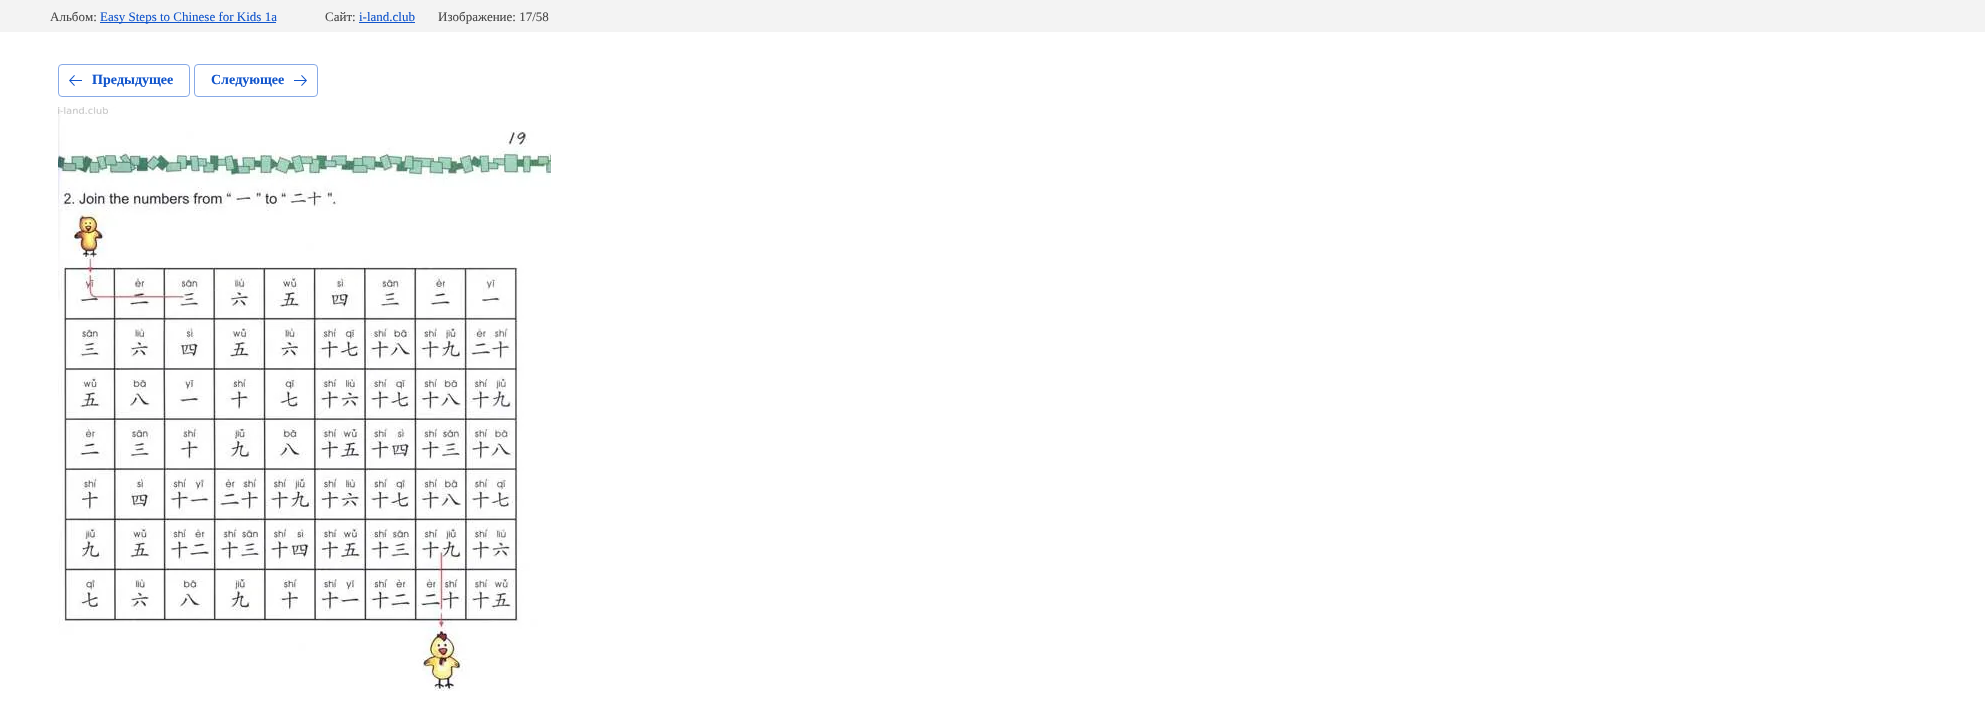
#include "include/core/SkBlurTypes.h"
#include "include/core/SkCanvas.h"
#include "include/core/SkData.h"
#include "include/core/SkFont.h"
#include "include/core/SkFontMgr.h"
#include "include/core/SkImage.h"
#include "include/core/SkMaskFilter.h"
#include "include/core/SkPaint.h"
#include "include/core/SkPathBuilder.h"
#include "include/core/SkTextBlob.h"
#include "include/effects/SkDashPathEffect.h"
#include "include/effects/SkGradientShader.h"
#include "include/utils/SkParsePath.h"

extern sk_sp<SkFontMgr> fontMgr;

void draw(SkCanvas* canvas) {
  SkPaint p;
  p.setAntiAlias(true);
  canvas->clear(SK_ColorWHITE);
  p.setColor(SkColorSetRGB(243, 243, 243));
  canvas->drawRect(SkRect::MakeLTRB(0, 0, 1985, 32), p);
  p.setColor(SkColorSetRGB(17, 85, 204));
  canvas->drawRect(SkRect::MakeLTRB(100, 22, 276, 23), p);
  canvas->drawRect(SkRect::MakeLTRB(359, 22, 415, 23), p);
  p.setStyle(SkPaint::kStroke_Style);
  p.setStrokeWidth(1);
  p.setColor(SkColorSetRGB(136, 170, 230));
  canvas->drawRoundRect(SkRect::MakeLTRB(58.5f, 64.5f, 189.5f, 96.5f), 3.5f, 3.5f, p);
  canvas->drawImageRect(SkImages::DeferredFromEncodedData(SkData::MakeFromFileName("images/1.png")), SkRect::MakeLTRB(69, 75, 82, 86), SkSamplingOptions());
  canvas->drawRoundRect(SkRect::MakeLTRB(194.5f, 64.5f, 317.5f, 96.5f), 3.5f, 3.5f, p);
  canvas->drawImageRect(SkImages::DeferredFromEncodedData(SkData::MakeFromFileName("images/2.png")), SkRect::MakeLTRB(294, 75, 307, 86), SkSamplingOptions());
  canvas->drawImageRect(SkImages::DeferredFromEncodedData(SkData::MakeFromFileName("images/3.png")), SkRect::MakeLTRB(58, 107, 551, 691), SkSamplingOptions());
  SkFont font1(fontMgr->matchFamilyStyle("Liberation Serif", SkFontStyle::Normal()), 13);
  font1.setSubpixel(true);
  p.setStyle(SkPaint::kFill_Style);
  p.setColor(SkColorSetRGB(72, 72, 72));
  canvas->drawString("Альбом:", 50, 21, font1, p);
  p.setColor(SkColorSetRGB(17, 85, 204));
  canvas->drawString("Easy Steps to Chinese for Kids 1a", 100, 21, font1, p);
  p.setColor(SkColorSetRGB(72, 72, 72));
  canvas->drawString("Сайт:", 325, 21, font1, p);
  p.setColor(SkColorSetRGB(17, 85, 204));
  canvas->drawString("i-land.club", 359, 21, font1, p);
  p.setColor(SkColorSetRGB(72, 72, 72));
  canvas->drawString("Изображение: 17/58", 438, 21, font1, p);
  SkFont font2(fontMgr->matchFamilyStyle("Liberation Serif", SkFontStyle::Bold()), 14);
  font2.setSubpixel(true);
  p.setColor(SkColorSetRGB(17, 85, 204));
  canvas->drawString("Предыдущее", 92, 84, font2, p);
  canvas->drawString("Следующее", 211, 84, font2, p);
}
